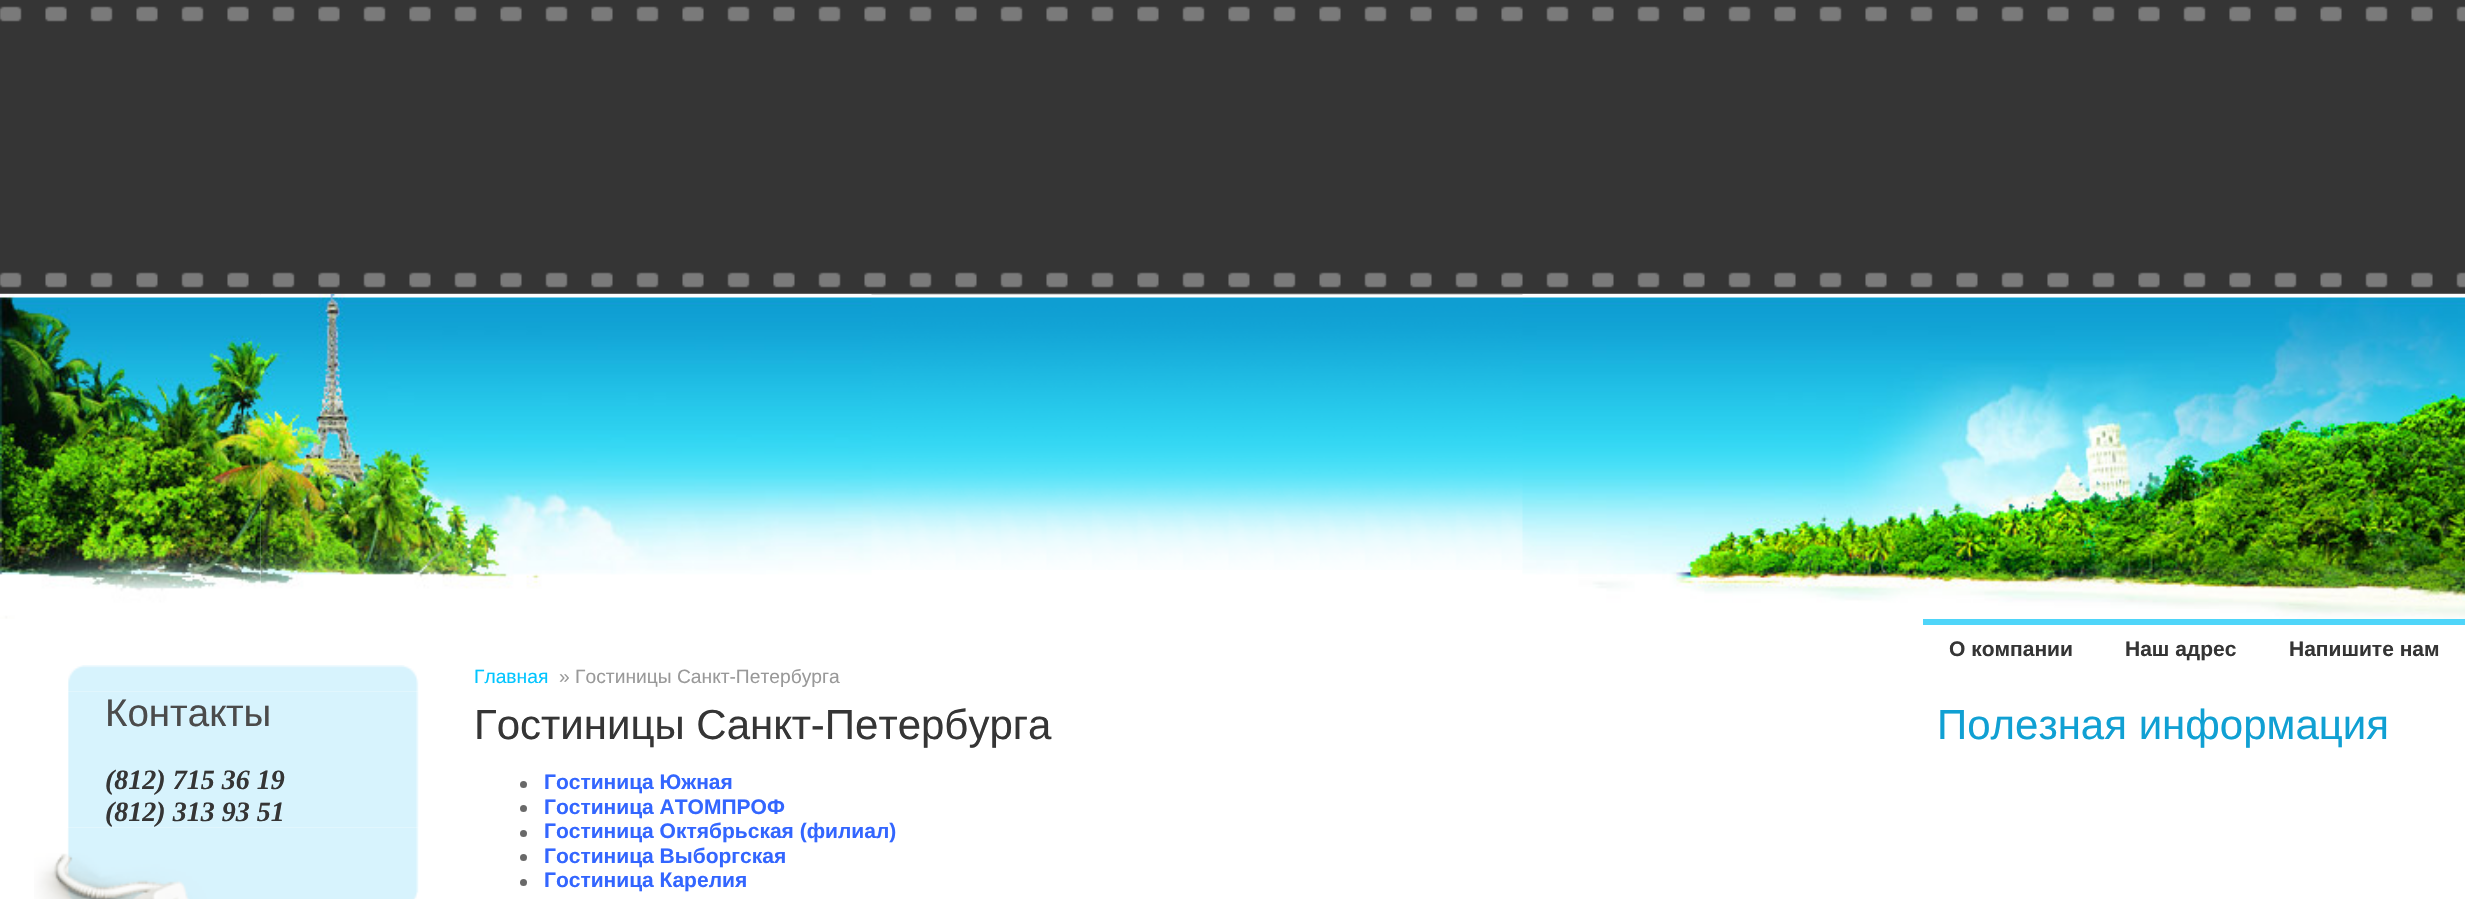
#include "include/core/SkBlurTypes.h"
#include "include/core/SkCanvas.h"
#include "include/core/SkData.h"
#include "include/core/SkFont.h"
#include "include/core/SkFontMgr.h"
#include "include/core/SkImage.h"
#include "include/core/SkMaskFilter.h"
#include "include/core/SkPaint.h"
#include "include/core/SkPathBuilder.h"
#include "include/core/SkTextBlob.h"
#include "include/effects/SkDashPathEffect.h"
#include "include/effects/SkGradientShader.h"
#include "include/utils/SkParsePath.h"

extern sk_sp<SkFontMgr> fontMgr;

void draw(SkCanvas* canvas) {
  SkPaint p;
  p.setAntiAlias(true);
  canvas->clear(SK_ColorWHITE);
  canvas->drawImageRect(SkImages::DeferredFromEncodedData(SkData::MakeFromFileName("images/1.png")), SkRect::MakeLTRB(0, 0, 2465, 570), SkSamplingOptions());
  canvas->drawImageRect(SkImages::DeferredFromEncodedData(SkData::MakeFromFileName("images/2.png")), SkRect::MakeLTRB(0, 294, 261, 619), SkSamplingOptions());
  canvas->drawImageRect(SkImages::DeferredFromEncodedData(SkData::MakeFromFileName("images/3.png")), SkRect::MakeLTRB(260, 294, 872, 589), SkSamplingOptions());
  canvas->drawImageRect(SkImages::DeferredFromEncodedData(SkData::MakeFromFileName("images/4.png")), SkRect::MakeLTRB(1522, 294, 2219, 609), SkSamplingOptions());
  canvas->drawImageRect(SkImages::DeferredFromEncodedData(SkData::MakeFromFileName("images/5.png")), SkRect::MakeLTRB(2219, 294, 2465, 619), SkSamplingOptions());
  p.setColor(SkColorSetRGB(79, 213, 249));
  canvas->drawRect(SkRect::MakeLTRB(1923, 619, 2465, 625), p);
  canvas->drawImageRect(SkImages::DeferredFromEncodedData(SkData::MakeFromFileName("images/6.png")), SkRect::MakeLTRB(68, 665, 419, 691), SkSamplingOptions());
  canvas->drawImageRect(SkImages::DeferredFromEncodedData(SkData::MakeFromFileName("images/7.png")), SkRect::MakeLTRB(68, 691, 419, 828), SkSamplingOptions());
  canvas->drawImageRect(SkImages::DeferredFromEncodedData(SkData::MakeFromFileName("images/8.png")), SkRect::MakeLTRB(34, 828, 419, 899), SkSamplingOptions());
  p.setColor(SkColorSetRGB(105, 105, 105));
  canvas->drawCircle(523.5f, 784.5f, 3.5f, p);
  canvas->drawCircle(523.5f, 808.5f, 3.5f, p);
  canvas->drawCircle(523.5f, 833.5f, 3.5f, p);
  canvas->drawCircle(523.5f, 857.5f, 3.5f, p);
  canvas->drawCircle(523.5f, 882.5f, 3.5f, p);
  SkFont font1(fontMgr->matchFamilyStyle("Liberation Sans", SkFontStyle::Bold()), 21);
  font1.setSubpixel(true);
  p.setColor(SkColorSetRGB(53, 53, 53));
  canvas->drawString("О компании", 1949, 656, font1, p);
  canvas->drawString("Наш адрес", 2125, 656, font1, p);
  canvas->drawString("Напишите нам", 2289, 656, font1, p);
  SkFont font2(fontMgr->matchFamilyStyle("Liberation Sans", SkFontStyle::Normal()), 38.5f);
  font2.setSubpixel(true);
  p.setColor(SkColorSetRGB(75, 75, 75));
  canvas->drawString("Контакты", 105, 726, font2, p);
  SkFont font3(fontMgr->matchFamilyStyle("Liberation Serif", SkFontStyle::BoldItalic()), 28);
  font3.setSubpixel(true);
  p.setColor(SkColorSetRGB(53, 53, 53));
  canvas->drawString("(812) 715 36 19", 105, 789, font3, p);
  canvas->drawString("(812) 313 93 51", 105, 821, font3, p);
  SkFont font4(fontMgr->matchFamilyStyle("Liberation Sans", SkFontStyle::Normal()), 19.25f);
  font4.setSubpixel(true);
  p.setColor(SkColorSetRGB(1, 197, 255));
  canvas->drawString("Главная", 474, 683, font4, p);
  p.setColor(SkColorSetRGB(153, 153, 153));
  canvas->drawString("» Гостиницы Санкт-Петербурга", 559, 683, font4, p);
  SkFont font5(fontMgr->matchFamilyStyle("Liberation Sans", SkFontStyle::Normal()), 42);
  font5.setSubpixel(true);
  p.setColor(SkColorSetRGB(53, 53, 53));
  canvas->drawString("Гостиницы Санкт-Петербурга", 474, 739, font5, p);
  p.setColor(SkColorSetRGB(51, 102, 255));
  canvas->drawString("Гостиница Южная", 544, 789, font1, p);
  canvas->drawString("Гостиница АТОМПРОФ", 544, 814, font1, p);
  canvas->drawString("Гостиница Октябрьская (филиал)", 544, 838, font1, p);
  canvas->drawString("Гостиница Выборгская", 544, 863, font1, p);
  canvas->drawString("Гостиница Карелия", 544, 887, font1, p);
  p.setColor(SkColorSetRGB(16, 160, 211));
  canvas->drawString("Полезная информация", 1937, 739, font5, p);
}
